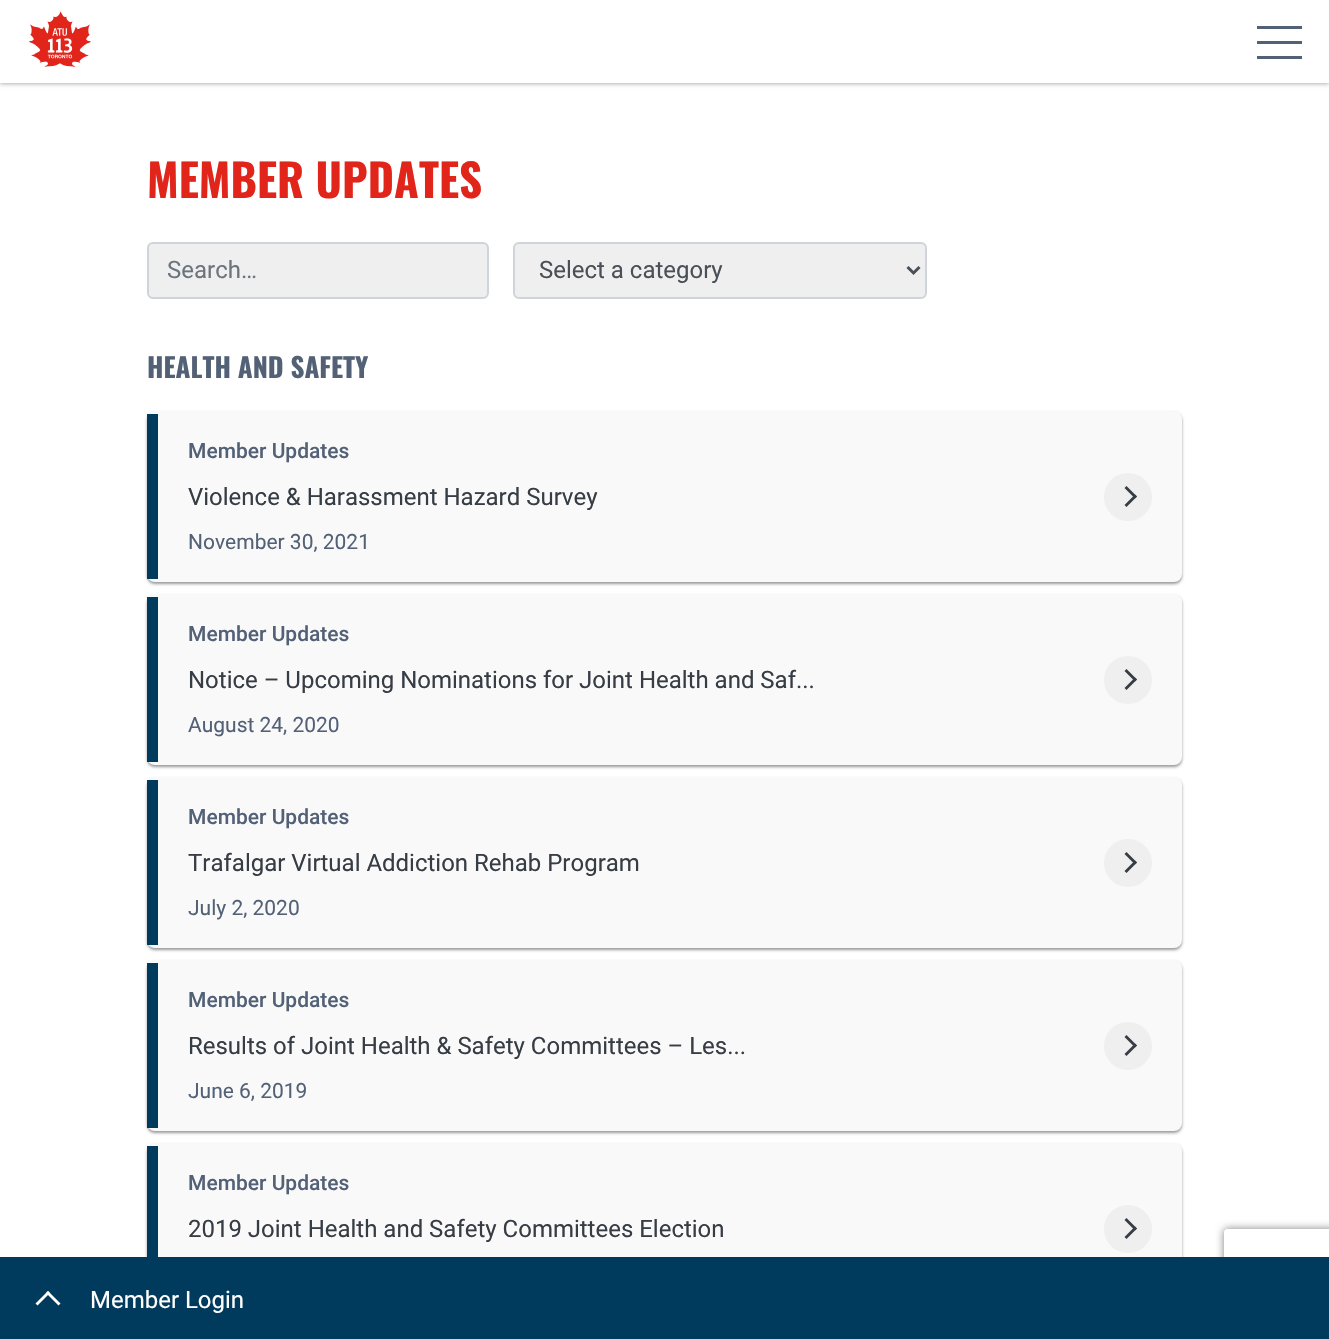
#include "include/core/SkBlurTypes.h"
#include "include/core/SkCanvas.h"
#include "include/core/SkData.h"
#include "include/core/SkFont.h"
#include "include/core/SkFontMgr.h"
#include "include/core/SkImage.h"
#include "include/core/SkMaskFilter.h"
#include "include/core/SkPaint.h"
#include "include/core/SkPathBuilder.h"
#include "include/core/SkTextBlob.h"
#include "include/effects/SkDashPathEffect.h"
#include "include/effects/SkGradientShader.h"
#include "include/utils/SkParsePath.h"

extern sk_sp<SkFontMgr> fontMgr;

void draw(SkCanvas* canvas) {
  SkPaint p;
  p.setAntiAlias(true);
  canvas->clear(SK_ColorWHITE);
  p.setColor(SkColorSetARGB(77, 0, 0, 0));
  p.setMaskFilter(SkMaskFilter::MakeBlur(kNormal_SkBlurStyle, 2));
  canvas->drawRect(SkRect::MakeLTRB(0, 2, 1329, 84), p);
  p.setMaskFilter(nullptr);
  p.setColor(SK_ColorWHITE);
  canvas->drawRect(SkRect::MakeLTRB(0, 0, 1329, 83), p);
  canvas->drawImageRect(SkImages::DeferredFromEncodedData(SkData::MakeFromFileName("images/1.png")), SkRect::MakeLTRB(29, 11, 91, 67), SkSamplingOptions());
  p.setColor(SkColorSetRGB(83, 97, 119));
  canvas->drawRect(SkRect::MakeLTRB(1257, 41, 1302, 44), p);
  canvas->drawRect(SkRect::MakeLTRB(1257, 26, 1302, 29), p);
  canvas->drawRect(SkRect::MakeLTRB(1257, 56, 1302, 59), p);
  p.setColor(SkColorSetRGB(239, 239, 239));
  canvas->drawRoundRect(SkRect::MakeLTRB(148, 243, 488, 298), 5, 5, p);
  p.setStyle(SkPaint::kStroke_Style);
  p.setStrokeWidth(2);
  p.setColor(SkColorSetRGB(206, 212, 218));
  canvas->drawRoundRect(SkRect::MakeLTRB(148, 243, 488, 298), 5, 5, p);
  p.setStyle(SkPaint::kFill_Style);
  p.setColor(SkColorSetRGB(239, 239, 239));
  canvas->drawRoundRect(SkRect::MakeLTRB(514, 243, 926, 298), 5, 5, p);
  p.setStyle(SkPaint::kStroke_Style);
  p.setColor(SkColorSetRGB(206, 212, 218));
  canvas->drawRoundRect(SkRect::MakeLTRB(514, 243, 926, 298), 5, 5, p);
  p.setStrokeWidth(3);
  p.setColor(SkColorSetRGB(73, 80, 87));
  canvas->drawPath(SkPathBuilder().moveTo(907.5f, 267).lineTo(913.5f, 273).lineTo(919.5f, 267).detach(), p);
  p.setStyle(SkPaint::kFill_Style);
  p.setColor(SkColorSetARGB(102, 0, 0, 0));
  p.setMaskFilter(SkMaskFilter::MakeBlur(kNormal_SkBlurStyle, 1.5f));
  canvas->drawRoundRect(SkRect::MakeLTRB(147, 413, 1182, 584), 8, 8, p);
  p.setMaskFilter(nullptr);
  p.setColor(SkColorSetRGB(249, 249, 249));
  canvas->drawRoundRect(SkRect::MakeLTRB(147, 411, 1182, 582), 8, 8, p);
  p.setColor(SkColorSetRGB(0, 58, 93));
  canvas->drawRect(SkRect::MakeLTRB(147, 414, 158, 579), p);
  p.setColor(SkColorSetRGB(239, 239, 239));
  canvas->drawCircle(1128, 497, 24, p);
  p.setColor(SkColorSetRGB(55, 61, 69));
  canvas->drawPath(SkPathBuilder().moveTo(1124.5f, 488).lineTo(1126.5f, 486).lineTo(1137, 496.5f).lineTo(1135, 498.5f).close().detach(), p);
  canvas->drawPath(SkPathBuilder().moveTo(1124.5f, 505).lineTo(1135, 494.5f).lineTo(1137, 496.5f).lineTo(1126.5f, 507).close().detach(), p);
  p.setColor(SkColorSetARGB(102, 0, 0, 0));
  p.setMaskFilter(SkMaskFilter::MakeBlur(kNormal_SkBlurStyle, 1.5f));
  canvas->drawRoundRect(SkRect::MakeLTRB(147, 596, 1182, 767), 8, 8, p);
  p.setMaskFilter(nullptr);
  p.setColor(SkColorSetRGB(249, 249, 249));
  canvas->drawRoundRect(SkRect::MakeLTRB(147, 594, 1182, 765), 8, 8, p);
  p.setColor(SkColorSetRGB(0, 58, 93));
  canvas->drawRect(SkRect::MakeLTRB(147, 597, 158, 762), p);
  p.setColor(SkColorSetRGB(239, 239, 239));
  canvas->drawCircle(1128, 680, 24, p);
  p.setColor(SkColorSetRGB(55, 61, 69));
  canvas->drawPath(SkPathBuilder().moveTo(1124.5f, 671).lineTo(1126.5f, 669).lineTo(1137, 679.5f).lineTo(1135, 681.5f).close().detach(), p);
  canvas->drawPath(SkPathBuilder().moveTo(1124.5f, 688).lineTo(1135, 677.5f).lineTo(1137, 679.5f).lineTo(1126.5f, 690).close().detach(), p);
  p.setColor(SkColorSetARGB(102, 0, 0, 0));
  p.setMaskFilter(SkMaskFilter::MakeBlur(kNormal_SkBlurStyle, 1.5f));
  canvas->drawRoundRect(SkRect::MakeLTRB(147, 779, 1182, 950), 8, 8, p);
  p.setMaskFilter(nullptr);
  p.setColor(SkColorSetRGB(249, 249, 249));
  canvas->drawRoundRect(SkRect::MakeLTRB(147, 777, 1182, 948), 8, 8, p);
  p.setColor(SkColorSetRGB(0, 58, 93));
  canvas->drawRect(SkRect::MakeLTRB(147, 780, 158, 945), p);
  p.setColor(SkColorSetRGB(239, 239, 239));
  canvas->drawCircle(1128, 863, 24, p);
  p.setColor(SkColorSetRGB(55, 61, 69));
  canvas->drawPath(SkPathBuilder().moveTo(1124.5f, 854).lineTo(1126.5f, 852).lineTo(1137, 862.5f).lineTo(1135, 864.5f).close().detach(), p);
  canvas->drawPath(SkPathBuilder().moveTo(1124.5f, 871).lineTo(1135, 860.5f).lineTo(1137, 862.5f).lineTo(1126.5f, 873).close().detach(), p);
  p.setColor(SkColorSetARGB(102, 0, 0, 0));
  p.setMaskFilter(SkMaskFilter::MakeBlur(kNormal_SkBlurStyle, 1.5f));
  canvas->drawRoundRect(SkRect::MakeLTRB(147, 962, 1182, 1133), 8, 8, p);
  p.setMaskFilter(nullptr);
  p.setColor(SkColorSetRGB(249, 249, 249));
  canvas->drawRoundRect(SkRect::MakeLTRB(147, 960, 1182, 1131), 8, 8, p);
  p.setColor(SkColorSetRGB(0, 58, 93));
  canvas->drawRect(SkRect::MakeLTRB(147, 963, 158, 1128), p);
  p.setColor(SkColorSetRGB(239, 239, 239));
  canvas->drawCircle(1128, 1046, 24, p);
  p.setColor(SkColorSetRGB(55, 61, 69));
  canvas->drawPath(SkPathBuilder().moveTo(1124.5f, 1037).lineTo(1126.5f, 1035).lineTo(1137, 1045.5f).lineTo(1135, 1047.5f).close().detach(), p);
  canvas->drawPath(SkPathBuilder().moveTo(1124.5f, 1054).lineTo(1135, 1043.5f).lineTo(1137, 1045.5f).lineTo(1126.5f, 1056).close().detach(), p);
  p.setColor(SkColorSetARGB(102, 0, 0, 0));
  p.setMaskFilter(SkMaskFilter::MakeBlur(kNormal_SkBlurStyle, 1.5f));
  canvas->drawRoundRect(SkRect::MakeLTRB(147, 1145, 1182, 1316), 8, 8, p);
  p.setMaskFilter(nullptr);
  p.setColor(SkColorSetRGB(249, 249, 249));
  canvas->drawRoundRect(SkRect::MakeLTRB(147, 1143, 1182, 1314), 8, 8, p);
  p.setColor(SkColorSetRGB(0, 58, 93));
  canvas->drawRect(SkRect::MakeLTRB(147, 1146, 158, 1257), p);
  p.setColor(SkColorSetRGB(239, 239, 239));
  canvas->drawCircle(1128, 1229, 24, p);
  p.setColor(SkColorSetRGB(55, 61, 69));
  canvas->drawPath(SkPathBuilder().moveTo(1124.5f, 1220).lineTo(1126.5f, 1218).lineTo(1137, 1228.5f).lineTo(1135, 1230.5f).close().detach(), p);
  canvas->drawPath(SkPathBuilder().moveTo(1124.5f, 1237).lineTo(1135, 1226.5f).lineTo(1137, 1228.5f).lineTo(1126.5f, 1239).close().detach(), p);
  canvas->save();
  canvas->clipPath(SkPathBuilder(SkPathFillType::kEvenOdd).moveTo(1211, 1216).lineTo(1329, 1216).lineTo(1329, 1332).lineTo(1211, 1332).close().moveTo(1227, 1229).lineTo(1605, 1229).cubicTo(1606.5f, 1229, 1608, 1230.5f, 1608, 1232).lineTo(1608, 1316).cubicTo(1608, 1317.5f, 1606.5f, 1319, 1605, 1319).lineTo(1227, 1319).cubicTo(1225.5f, 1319, 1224, 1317.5f, 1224, 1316).lineTo(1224, 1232).cubicTo(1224, 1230.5f, 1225.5f, 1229, 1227, 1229).close().detach(), true);
  p.setColor(SkColorSetRGB(128, 128, 128));
  p.setMaskFilter(SkMaskFilter::MakeBlur(kNormal_SkBlurStyle, 4));
  canvas->drawRoundRect(SkRect::MakeLTRB(1224, 1229, 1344, 1319), 3, 3, p);
  p.setMaskFilter(nullptr);
  canvas->restore();
  p.setColor(SkColorSetRGB(0, 58, 93));
  canvas->drawRect(SkRect::MakeLTRB(0, 1257, 1329, 1339), p);
  p.setColor(SK_ColorWHITE);
  canvas->drawPath(SkPathBuilder().moveTo(37.5f, 1305.5f).lineTo(35.5f, 1303.5f).lineTo(48, 1291).lineTo(50, 1293).close().detach(), p);
  canvas->drawPath(SkPathBuilder().moveTo(58.5f, 1305.5f).lineTo(46, 1293).lineTo(48, 1291).lineTo(60.5f, 1303.5f).close().detach(), p);
  SkFont font1(fontMgr->matchFamilyStyle("Oswald", SkFontStyle::Bold()), 45);
  font1.setSubpixel(true);
  p.setColor(SkColorSetRGB(225, 37, 27));
  canvas->drawString("MEMBER UPDATES", 147, 198, font1, p);
  SkFont font2(fontMgr->matchFamilyStyle("Roboto", SkFontStyle::Normal()), 24);
  font2.setSubpixel(true);
  p.setColor(SkColorSetRGB(108, 117, 125));
  canvas->drawString("Search…", 167, 278, font2, p);
  p.setColor(SkColorSetRGB(73, 80, 87));
  canvas->drawString("Select a category", 539, 278, font2, p);
  SkFont font3(fontMgr->matchFamilyStyle("Oswald", SkFontStyle::Bold()), 27);
  font3.setSubpixel(true);
  p.setColor(SkColorSetRGB(83, 97, 119));
  canvas->drawString("HEALTH AND SAFETY", 147, 378, font3, p);
  SkFont font4(fontMgr->matchFamilyStyle("Roboto", SkFontStyle(500, SkFontStyle::kNormal_Width, SkFontStyle::kUpright_Slant)), 21);
  font4.setSubpixel(true);
  canvas->drawString("Member Updates", 188, 458, font4, p);
  p.setColor(SkColorSetRGB(55, 61, 69));
  canvas->drawString("Violence & Harassment Hazard Survey", 188, 505, font2, p);
  SkFont font5(fontMgr->matchFamilyStyle("Roboto", SkFontStyle::Normal()), 21);
  font5.setSubpixel(true);
  p.setColor(SkColorSetRGB(83, 97, 119));
  canvas->drawString("November 30, 2021", 188, 549, font5, p);
  canvas->drawString("Member Updates", 188, 641, font4, p);
  p.setColor(SkColorSetRGB(55, 61, 69));
  canvas->drawString("Notice – Upcoming Nominations for Joint Health and Saf...", 188, 688, font2, p);
  p.setColor(SkColorSetRGB(83, 97, 119));
  canvas->drawString("August 24, 2020", 188, 732, font5, p);
  canvas->drawString("Member Updates", 188, 824, font4, p);
  p.setColor(SkColorSetRGB(55, 61, 69));
  canvas->drawString("Trafalgar Virtual Addiction Rehab Program", 188, 871, font2, p);
  p.setColor(SkColorSetRGB(83, 97, 119));
  canvas->drawString("July 2, 2020", 188, 915, font5, p);
  canvas->drawString("Member Updates", 188, 1007, font4, p);
  p.setColor(SkColorSetRGB(55, 61, 69));
  canvas->drawString("Results of Joint Health & Safety Committees – Les...", 188, 1054, font2, p);
  p.setColor(SkColorSetRGB(83, 97, 119));
  canvas->drawString("June 6, 2019", 188, 1098, font5, p);
  canvas->drawString("Member Updates", 188, 1190, font4, p);
  p.setColor(SkColorSetRGB(55, 61, 69));
  canvas->drawString("2019 Joint Health and Safety Committees Election", 188, 1237, font2, p);
  p.setColor(SK_ColorWHITE);
  canvas->drawString("Member Login", 90, 1308, font2, p);
}
